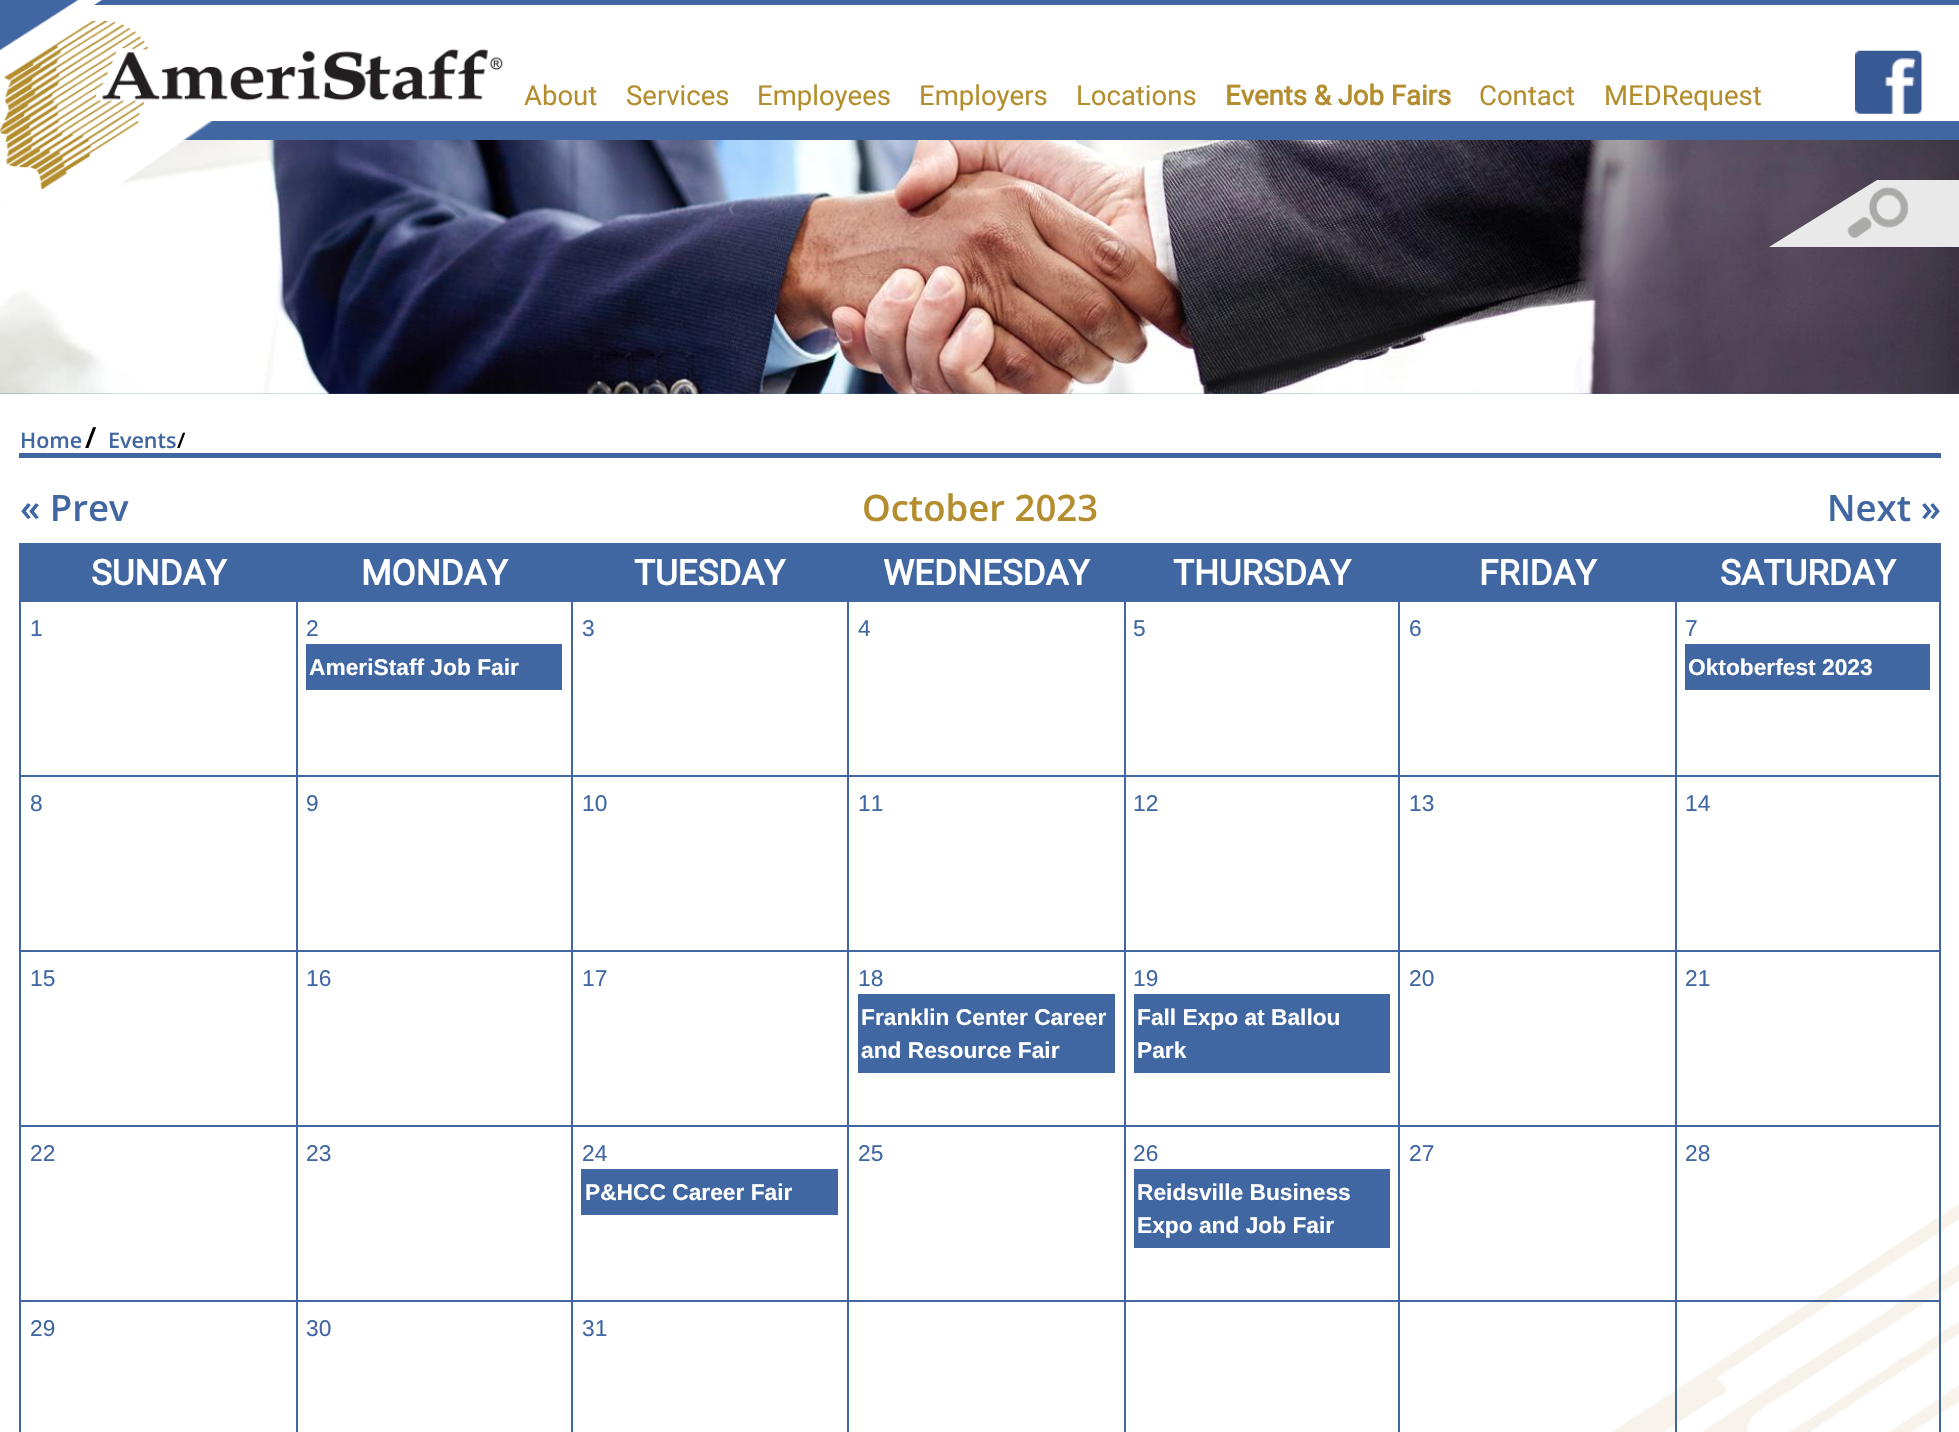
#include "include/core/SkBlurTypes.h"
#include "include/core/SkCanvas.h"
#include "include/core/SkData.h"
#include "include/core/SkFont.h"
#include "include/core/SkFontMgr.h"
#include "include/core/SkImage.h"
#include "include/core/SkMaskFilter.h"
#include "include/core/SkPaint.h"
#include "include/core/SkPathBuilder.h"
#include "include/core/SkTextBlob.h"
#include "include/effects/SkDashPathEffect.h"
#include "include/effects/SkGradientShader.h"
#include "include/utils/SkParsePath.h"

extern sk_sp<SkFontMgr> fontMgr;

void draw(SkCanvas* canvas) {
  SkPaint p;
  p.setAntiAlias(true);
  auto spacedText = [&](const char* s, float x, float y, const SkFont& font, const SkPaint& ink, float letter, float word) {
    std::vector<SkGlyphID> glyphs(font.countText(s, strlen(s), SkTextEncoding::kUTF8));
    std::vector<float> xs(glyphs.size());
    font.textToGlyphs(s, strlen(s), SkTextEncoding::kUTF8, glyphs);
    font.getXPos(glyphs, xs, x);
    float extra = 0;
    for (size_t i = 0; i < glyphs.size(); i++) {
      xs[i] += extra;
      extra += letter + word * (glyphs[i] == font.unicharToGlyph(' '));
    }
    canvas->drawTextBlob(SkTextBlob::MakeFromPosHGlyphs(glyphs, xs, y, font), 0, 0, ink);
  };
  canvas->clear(SK_ColorWHITE);
  p.setColor(SkColorSetRGB(64, 103, 161));
  canvas->drawRect(SkRect::MakeLTRB(0, 121, 1959, 394), p);
  canvas->drawImageRect(SkImages::DeferredFromEncodedData(SkData::MakeFromFileName("images/4.png")), SkRect::MakeLTRB(0, 140, 1959, 394), SkSamplingOptions());
  canvas->drawImageRect(SkImages::DeferredFromEncodedData(SkData::MakeFromFileName("images/1.png")), SkRect::MakeLTRB(0, 0, 214, 203), SkSamplingOptions());
  canvas->drawImageRect(SkImages::DeferredFromEncodedData(SkData::MakeFromFileName("images/2.png")), SkRect::MakeLTRB(0, 21, 503, 189), SkSamplingOptions());
  canvas->drawPath(SkPathBuilder().moveTo(102, 0).lineTo(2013, 0).lineTo(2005, 5).lineTo(94, 5).close().detach(), p);
  canvas->drawImageRect(SkImages::DeferredFromEncodedData(SkData::MakeFromFileName("images/3.png")), SkRect::MakeLTRB(1855, 50, 1922, 114), SkSamplingOptions());
  p.setColor(SkColorSetRGB(233, 233, 233));
  canvas->drawPath(SkPathBuilder().moveTo(1877, 180).lineTo(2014, 180).lineTo(1906, 247).lineTo(1769, 247).close().detach(), p);
  canvas->drawRect(SkRect::MakeLTRB(1906, 214, 1959, 247), p);
  canvas->drawImageRect(SkImages::DeferredFromEncodedData(SkData::MakeFromFileName("images/5.png")), SkRect::MakeLTRB(1847, 187, 1909, 238), SkSamplingOptions());
  p.setColor(SkColorSetRGB(64, 103, 161));
  canvas->drawRect(SkRect::MakeLTRB(19, 453, 1941, 458), p);
  canvas->drawRect(SkRect::MakeLTRB(19, 543, 1941, 600), p);
  canvas->drawRect(SkRect::MakeLTRB(19, 600, 1941, 602), p);
  canvas->drawRect(SkRect::MakeLTRB(19, 600, 21, 775), p);
  canvas->drawRect(SkRect::MakeLTRB(296, 600, 298, 775), p);
  canvas->drawRect(SkRect::MakeLTRB(306, 644, 562, 690), p);
  canvas->drawRect(SkRect::MakeLTRB(571, 600, 573, 775), p);
  canvas->drawRect(SkRect::MakeLTRB(847, 600, 849, 775), p);
  canvas->drawRect(SkRect::MakeLTRB(1124, 600, 1126, 775), p);
  canvas->drawRect(SkRect::MakeLTRB(1398, 600, 1400, 775), p);
  canvas->drawRect(SkRect::MakeLTRB(1939, 600, 1941, 775), p);
  canvas->drawRect(SkRect::MakeLTRB(1675, 600, 1677, 775), p);
  canvas->drawRect(SkRect::MakeLTRB(1685, 644, 1930, 690), p);
  canvas->drawRect(SkRect::MakeLTRB(19, 775, 1941, 777), p);
  canvas->drawRect(SkRect::MakeLTRB(19, 775, 21, 950), p);
  canvas->drawRect(SkRect::MakeLTRB(296, 775, 298, 950), p);
  canvas->drawRect(SkRect::MakeLTRB(571, 775, 573, 950), p);
  canvas->drawRect(SkRect::MakeLTRB(847, 775, 849, 950), p);
  canvas->drawRect(SkRect::MakeLTRB(1124, 775, 1126, 950), p);
  canvas->drawRect(SkRect::MakeLTRB(1398, 775, 1400, 950), p);
  canvas->drawRect(SkRect::MakeLTRB(1939, 775, 1941, 950), p);
  canvas->drawRect(SkRect::MakeLTRB(1675, 775, 1677, 950), p);
  canvas->drawRect(SkRect::MakeLTRB(19, 950, 1941, 952), p);
  canvas->drawRect(SkRect::MakeLTRB(19, 950, 21, 1125), p);
  canvas->drawRect(SkRect::MakeLTRB(296, 950, 298, 1125), p);
  canvas->drawRect(SkRect::MakeLTRB(571, 950, 573, 1125), p);
  canvas->drawRect(SkRect::MakeLTRB(847, 950, 849, 1125), p);
  canvas->drawRect(SkRect::MakeLTRB(858, 994, 1115, 1073), p);
  canvas->drawRect(SkRect::MakeLTRB(1124, 950, 1126, 1125), p);
  canvas->drawRect(SkRect::MakeLTRB(1134, 994, 1390, 1073), p);
  canvas->drawRect(SkRect::MakeLTRB(1398, 950, 1400, 1125), p);
  canvas->drawRect(SkRect::MakeLTRB(1939, 950, 1941, 1125), p);
  canvas->drawRect(SkRect::MakeLTRB(1675, 950, 1677, 1125), p);
  canvas->drawRect(SkRect::MakeLTRB(19, 1125, 1941, 1127), p);
  canvas->drawRect(SkRect::MakeLTRB(19, 1125, 21, 1300), p);
  canvas->drawRect(SkRect::MakeLTRB(296, 1125, 298, 1300), p);
  canvas->drawRect(SkRect::MakeLTRB(571, 1125, 573, 1300), p);
  canvas->drawRect(SkRect::MakeLTRB(581, 1169, 838, 1215), p);
  canvas->drawRect(SkRect::MakeLTRB(847, 1125, 849, 1300), p);
  canvas->drawRect(SkRect::MakeLTRB(1124, 1125, 1126, 1300), p);
  canvas->drawRect(SkRect::MakeLTRB(1134, 1169, 1390, 1248), p);
  canvas->drawRect(SkRect::MakeLTRB(1398, 1125, 1400, 1300), p);
  canvas->drawImageRect(SkImages::DeferredFromEncodedData(SkData::MakeFromFileName("images/6.png")), SkRect::MakeLTRB(1612, 1204, 1959, 1432), SkSamplingOptions());
  canvas->drawRect(SkRect::MakeLTRB(1939, 1125, 1941, 1300), p);
  canvas->drawRect(SkRect::MakeLTRB(1675, 1125, 1677, 1300), p);
  canvas->drawRect(SkRect::MakeLTRB(19, 1300, 1941, 1302), p);
  canvas->drawRect(SkRect::MakeLTRB(19, 1300, 21, 1432), p);
  canvas->drawRect(SkRect::MakeLTRB(296, 1300, 298, 1432), p);
  canvas->drawRect(SkRect::MakeLTRB(571, 1300, 573, 1432), p);
  canvas->drawRect(SkRect::MakeLTRB(847, 1300, 849, 1432), p);
  canvas->drawRect(SkRect::MakeLTRB(1124, 1300, 1126, 1432), p);
  canvas->drawRect(SkRect::MakeLTRB(1398, 1300, 1400, 1432), p);
  canvas->drawRect(SkRect::MakeLTRB(1939, 1300, 1941, 1432), p);
  canvas->drawRect(SkRect::MakeLTRB(1675, 1300, 1677, 1432), p);
  SkFont font1(fontMgr->matchFamilyStyle("Roboto", SkFontStyle::Normal()), 27.5f);
  font1.setSubpixel(true);
  p.setColor(SkColorSetRGB(179, 141, 46));
  canvas->drawString("About", 524, 105, font1, p);
  canvas->drawString("Services", 626, 105, font1, p);
  canvas->drawString("Employees", 757, 105, font1, p);
  canvas->drawString("Employers", 919, 105, font1, p);
  canvas->drawString("Locations", 1076, 105, font1, p);
  SkFont font2(fontMgr->matchFamilyStyle("Roboto", SkFontStyle::Bold()), 27.5f);
  font2.setSubpixel(true);
  canvas->drawString("Events & Job Fairs", 1225, 105, font2, p);
  canvas->drawString("Contact", 1479, 105, font1, p);
  canvas->drawString("MEDRequest", 1604, 105, font1, p);
  SkFont font3(fontMgr->matchFamilyStyle("Open Sans", SkFontStyle(600, SkFontStyle::kNormal_Width, SkFontStyle::kUpright_Slant)), 21.5f);
  font3.setSubpixel(true);
  p.setColor(SkColorSetRGB(64, 103, 161));
  canvas->drawString("Home", 20, 448, font3, p);
  SkFont font4(fontMgr->matchFamilyStyle("Open Sans", SkFontStyle(600, SkFontStyle::kNormal_Width, SkFontStyle::kUpright_Slant)), 29);
  font4.setSubpixel(true);
  p.setColor(SK_ColorBLACK);
  spacedText("/", 85, 448, font4, p, -3, 0);
  p.setColor(SkColorSetRGB(64, 103, 161));
  canvas->drawString("Events", 108, 448, font3, p);
  p.setColor(SK_ColorBLACK);
  canvas->drawString("/", 177, 448, font3, p);
  SkFont font5(fontMgr->matchFamilyStyle("Open Sans", SkFontStyle(600, SkFontStyle::kNormal_Width, SkFontStyle::kUpright_Slant)), 36.5f);
  font5.setSubpixel(true);
  p.setColor(SkColorSetRGB(64, 103, 161));
  canvas->drawString("« Prev", 20, 521, font5, p);
  p.setColor(SkColorSetRGB(179, 141, 46));
  canvas->drawString("October 2023", 862, 521, font5, p);
  p.setColor(SkColorSetRGB(64, 103, 161));
  canvas->drawString("Next »", 1827, 521, font5, p);
  SkFont font6(fontMgr->matchFamilyStyle("Roboto", SkFontStyle::Bold()), 35);
  font6.setSubpixel(true);
  p.setColor(SK_ColorWHITE);
  canvas->drawString("SUNDAY", 91, 585, font6, p);
  canvas->drawString("MONDAY", 361, 585, font6, p);
  canvas->drawString("TUESDAY", 634, 585, font6, p);
  canvas->drawString("WEDNESDAY", 883, 585, font6, p);
  canvas->drawString("THURSDAY", 1173, 585, font6, p);
  canvas->drawString("FRIDAY", 1479, 585, font6, p);
  canvas->drawString("SATURDAY", 1720, 585, font6, p);
  SkFont font7(fontMgr->matchFamilyStyle("Liberation Sans", SkFontStyle::Normal()), 22.75f);
  font7.setSubpixel(true);
  p.setColor(SkColorSetRGB(64, 103, 161));
  canvas->drawString("1", 30, 636, font7, p);
  canvas->drawString("2", 306, 636, font7, p);
  SkFont font8(fontMgr->matchFamilyStyle("Liberation Sans", SkFontStyle::Bold()), 22.75f);
  font8.setSubpixel(true);
  p.setColor(SK_ColorWHITE);
  canvas->drawString("AmeriStaff Job Fair", 309, 675, font8, p);
  p.setColor(SkColorSetRGB(64, 103, 161));
  canvas->drawString("3", 582, 636, font7, p);
  canvas->drawString("4", 858, 636, font7, p);
  canvas->drawString("5", 1133, 636, font7, p);
  canvas->drawString("6", 1409, 636, font7, p);
  canvas->drawString("7", 1685, 636, font7, p);
  p.setColor(SK_ColorWHITE);
  canvas->drawString("Oktoberfest 2023", 1688, 675, font8, p);
  p.setColor(SkColorSetRGB(64, 103, 161));
  canvas->drawString("8", 30, 811, font7, p);
  canvas->drawString("9", 306, 811, font7, p);
  canvas->drawString("10", 582, 811, font7, p);
  canvas->drawString("11", 858, 811, font7, p);
  canvas->drawString("12", 1133, 811, font7, p);
  canvas->drawString("13", 1409, 811, font7, p);
  canvas->drawString("14", 1685, 811, font7, p);
  canvas->drawString("15", 30, 986, font7, p);
  canvas->drawString("16", 306, 986, font7, p);
  canvas->drawString("17", 582, 986, font7, p);
  canvas->drawString("18", 858, 986, font7, p);
  p.setColor(SK_ColorWHITE);
  canvas->drawString("Franklin Center Career", 861, 1025, font8, p);
  canvas->drawString("and Resource Fair", 861, 1058, font8, p);
  p.setColor(SkColorSetRGB(64, 103, 161));
  canvas->drawString("19", 1133, 986, font7, p);
  p.setColor(SK_ColorWHITE);
  canvas->drawString("Fall Expo at Ballou", 1137, 1025, font8, p);
  canvas->drawString("Park", 1137, 1058, font8, p);
  p.setColor(SkColorSetRGB(64, 103, 161));
  canvas->drawString("20", 1409, 986, font7, p);
  canvas->drawString("21", 1685, 986, font7, p);
  canvas->drawString("22", 30, 1161, font7, p);
  canvas->drawString("23", 306, 1161, font7, p);
  canvas->drawString("24", 582, 1161, font7, p);
  p.setColor(SK_ColorWHITE);
  canvas->drawString("P&HCC Career Fair", 585, 1200, font8, p);
  p.setColor(SkColorSetRGB(64, 103, 161));
  canvas->drawString("25", 858, 1161, font7, p);
  canvas->drawString("26", 1133, 1161, font7, p);
  p.setColor(SK_ColorWHITE);
  canvas->drawString("Reidsville Business", 1137, 1200, font8, p);
  canvas->drawString("Expo and Job Fair", 1137, 1233, font8, p);
  p.setColor(SkColorSetRGB(64, 103, 161));
  canvas->drawString("27", 1409, 1161, font7, p);
  canvas->drawString("28", 1685, 1161, font7, p);
  canvas->drawString("29", 30, 1336, font7, p);
  canvas->drawString("30", 306, 1336, font7, p);
  canvas->drawString("31", 582, 1336, font7, p);
}
